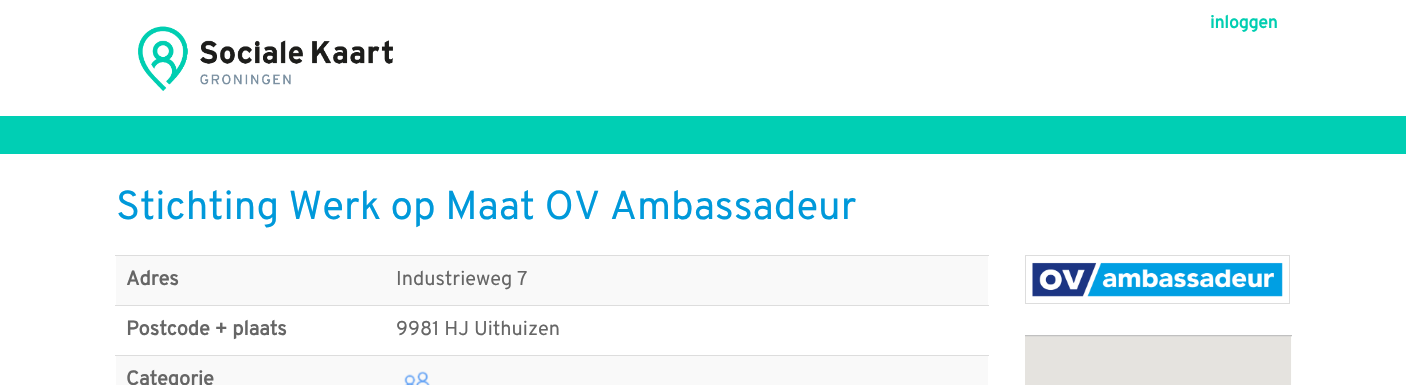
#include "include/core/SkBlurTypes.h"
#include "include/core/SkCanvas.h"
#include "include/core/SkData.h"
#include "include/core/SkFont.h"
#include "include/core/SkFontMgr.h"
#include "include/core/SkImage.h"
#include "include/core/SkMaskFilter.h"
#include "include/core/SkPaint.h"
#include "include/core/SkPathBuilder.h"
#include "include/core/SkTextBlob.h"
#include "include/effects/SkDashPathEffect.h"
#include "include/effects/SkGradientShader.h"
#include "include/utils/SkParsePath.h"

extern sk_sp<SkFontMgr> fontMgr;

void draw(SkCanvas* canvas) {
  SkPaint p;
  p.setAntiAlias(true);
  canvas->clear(SK_ColorWHITE);
  canvas->drawImageRect(SkImages::DeferredFromEncodedData(SkData::MakeFromFileName("images/1.png")), SkRect::MakeLTRB(138, 26, 393, 91), SkSamplingOptions());
  p.setColor(SkColorSetRGB(0, 207, 180));
  canvas->drawRect(SkRect::MakeLTRB(0, 116, 1406, 154), p);
  p.setColor(SkColorSetRGB(249, 249, 249));
  canvas->drawRect(SkRect::MakeLTRB(116, 256, 988, 305), p);
  p.setColor(SkColorSetRGB(221, 221, 221));
  canvas->drawRect(SkRect::MakeLTRB(115, 255, 989, 256), p);
  canvas->drawRect(SkRect::MakeLTRB(115, 305, 989, 306), p);
  p.setColor(SkColorSetRGB(249, 249, 249));
  canvas->drawRect(SkRect::MakeLTRB(116, 356, 988, 385), p);
  p.setColor(SkColorSetRGB(221, 221, 221));
  canvas->drawRect(SkRect::MakeLTRB(115, 355, 989, 356), p);
  canvas->drawImageRect(SkImages::DeferredFromEncodedData(SkData::MakeFromFileName("images/2.png")), SkRect::MakeLTRB(404, 371, 430, 385), SkSamplingOptions());
  p.setStyle(SkPaint::kStroke_Style);
  p.setStrokeWidth(1);
  canvas->drawRect(SkRect::MakeLTRB(1025.5f, 255.5f, 1289.5f, 303.5f), p);
  canvas->drawImageRect(SkImages::DeferredFromEncodedData(SkData::MakeFromFileName("images/3.png")), SkRect::MakeLTRB(1032, 262, 1283, 297), SkSamplingOptions());
  canvas->drawImageRect(SkImages::DeferredFromEncodedData(SkData::MakeFromFileName("images/4.png")), SkRect::MakeLTRB(1025, 335, 1292, 385), SkSamplingOptions());
  SkFont font1(fontMgr->matchFamilyStyle("Overpass", SkFontStyle::Bold()), 17.5f);
  font1.setSubpixel(true);
  p.setStyle(SkPaint::kFill_Style);
  p.setColor(SkColorSetRGB(0, 206, 177));
  canvas->drawString("inloggen", 1210, 28, font1, p);
  SkFont font2(fontMgr->matchFamilyStyle("Overpass", SkFontStyle::Normal()), 40.25f);
  font2.setSubpixel(true);
  p.setColor(SkColorSetRGB(0, 153, 218));
  canvas->drawString("Stichting Werk op Maat OV Ambassadeur", 116, 219, font2, p);
  SkFont font3(fontMgr->matchFamilyStyle("Overpass", SkFontStyle::Bold()), 20);
  font3.setSubpixel(true);
  p.setColor(SkColorSetRGB(102, 102, 102));
  canvas->drawString("Adres", 126, 285, font3, p);
  SkFont font4(fontMgr->matchFamilyStyle("Overpass", SkFontStyle::Normal()), 20);
  font4.setSubpixel(true);
  canvas->drawString("Industrieweg 7", 396, 285, font4, p);
  canvas->drawString("Postcode + plaats", 126, 335, font3, p);
  canvas->drawString("9981 HJ Uithuizen", 396, 335, font4, p);
  canvas->drawString("Categorie", 126, 385, font3, p);
}
